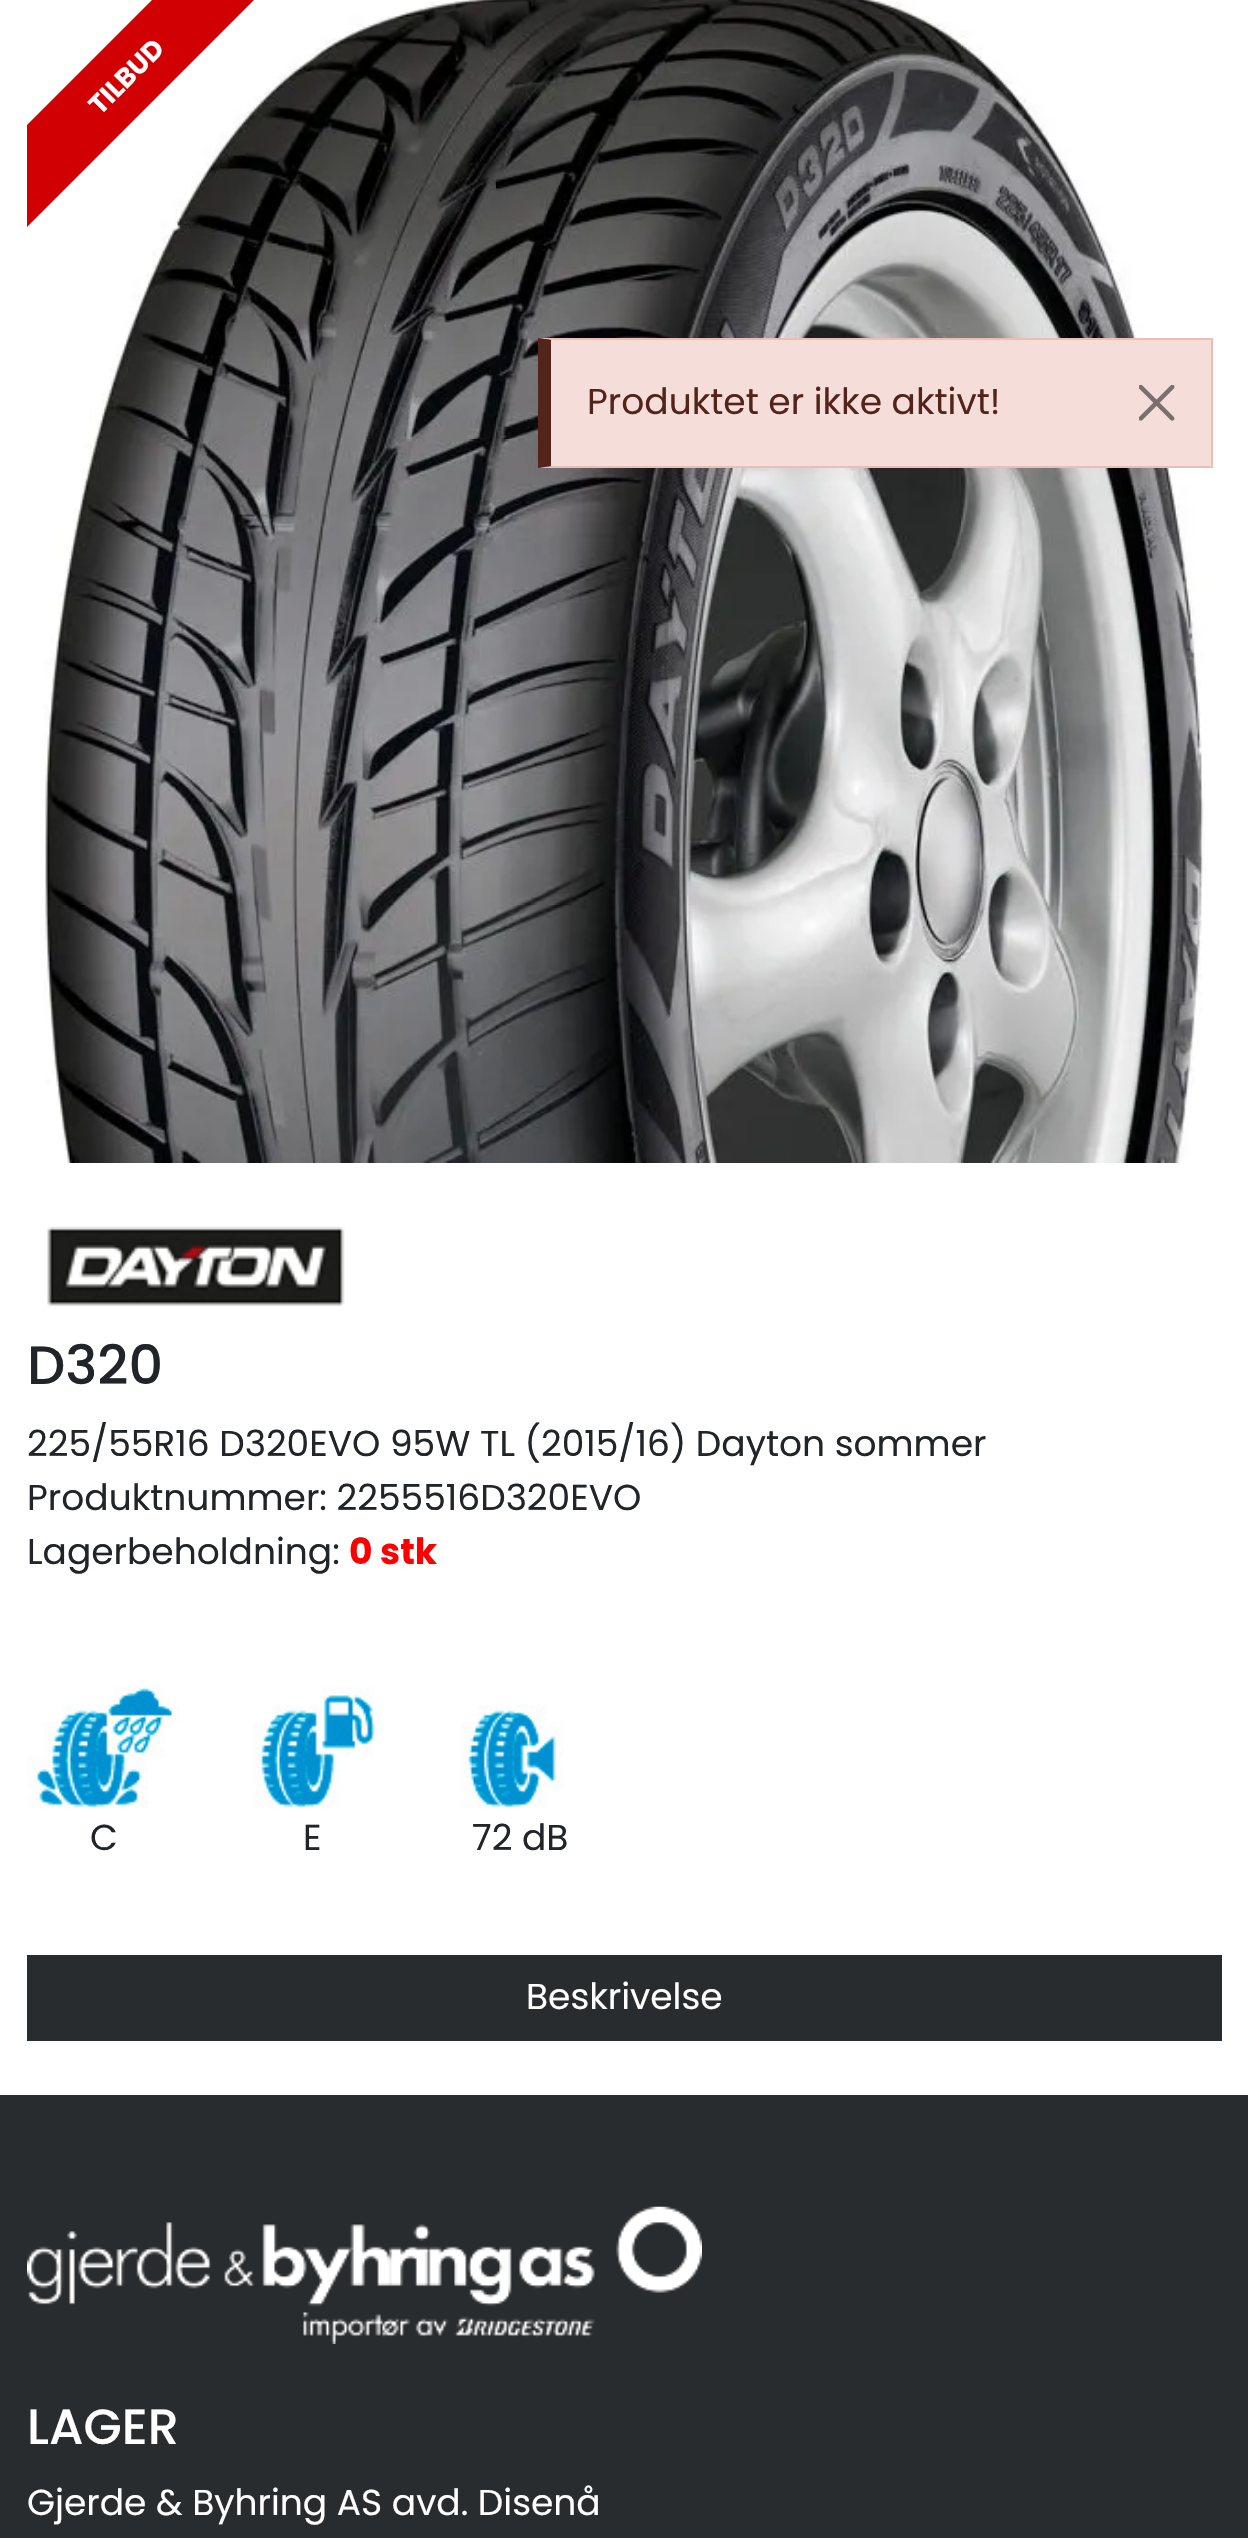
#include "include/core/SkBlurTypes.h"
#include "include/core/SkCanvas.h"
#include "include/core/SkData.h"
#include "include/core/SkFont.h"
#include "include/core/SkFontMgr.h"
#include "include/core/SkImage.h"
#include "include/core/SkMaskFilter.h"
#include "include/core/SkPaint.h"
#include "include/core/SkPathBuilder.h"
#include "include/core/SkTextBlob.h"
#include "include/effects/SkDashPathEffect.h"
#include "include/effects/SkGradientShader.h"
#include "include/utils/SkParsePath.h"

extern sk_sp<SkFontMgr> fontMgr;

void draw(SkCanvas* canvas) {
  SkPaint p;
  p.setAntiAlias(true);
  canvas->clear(SK_ColorWHITE);
  canvas->drawImageRect(SkImages::DeferredFromEncodedData(SkData::MakeFromFileName("images/1.png")), SkRect::MakeLTRB(44, 0, 1206, 1163), SkSamplingOptions());
  canvas->save();
  canvas->clipRect(SkRect::MakeLTRB(27, 0, 432, 378));
  p.setColor(SkColorSetRGB(209, 0, 3));
  canvas->drawPath(SkPathBuilder().moveTo(-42, 194).lineTo(244, -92).lineTo(295, -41).lineTo(9, 245).close().detach(), p);
  canvas->restore();
  canvas->drawImageRect(SkImages::DeferredFromEncodedData(SkData::MakeFromFileName("images/2.png")), SkRect::MakeLTRB(47, 1226, 345, 1307), SkSamplingOptions());
  canvas->drawImageRect(SkImages::DeferredFromEncodedData(SkData::MakeFromFileName("images/3.png")), SkRect::MakeLTRB(27, 1687, 180, 1809), SkSamplingOptions());
  canvas->drawImageRect(SkImages::DeferredFromEncodedData(SkData::MakeFromFileName("images/4.png")), SkRect::MakeLTRB(253, 1687, 375, 1809), SkSamplingOptions());
  canvas->drawImageRect(SkImages::DeferredFromEncodedData(SkData::MakeFromFileName("images/5.png")), SkRect::MakeLTRB(460, 1704, 564, 1809), SkSamplingOptions());
  p.setColor(SkColorSetRGB(41, 44, 47));
  canvas->drawRect(SkRect::MakeLTRB(27, 1955, 1222, 2041), p);
  p.setColor(SkColorSetRGB(245, 222, 218));
  canvas->drawRect(SkRect::MakeLTRB(551, 340, 1211, 466), p);
  p.setColor(SkColorSetRGB(235, 189, 181));
  canvas->drawPath(SkPathBuilder().moveTo(538, 338).lineTo(1213, 338).lineTo(1210, 340).lineTo(551, 340).close().detach(), p);
  canvas->drawRect(SkRect::MakeLTRB(1211, 338, 1213, 468), p);
  canvas->drawPath(SkPathBuilder().moveTo(1213, 468).lineTo(538, 468).lineTo(551, 466).lineTo(1210, 466).close().detach(), p);
  p.setColor(SkColorSetRGB(82, 36, 28));
  canvas->drawPath(SkPathBuilder().moveTo(538, 468).lineTo(538, 338).lineTo(551, 340).lineTo(551, 466).close().detach(), p);
  canvas->drawImageRect(SkImages::DeferredFromEncodedData(SkData::MakeFromFileName("images/6.png")), SkRect::MakeLTRB(1139, 385, 1175, 421), SkSamplingOptions());
  p.setColor(SkColorSetRGB(41, 44, 47));
  canvas->drawRect(SkRect::MakeLTRB(0, 2095, 1248, 2538), p);
  canvas->drawImageRect(SkImages::DeferredFromEncodedData(SkData::MakeFromFileName("images/7.png")), SkRect::MakeLTRB(27, 2206, 702, 2344), SkSamplingOptions());
  SkFont font1(fontMgr->matchFamilyStyle("Poppins", SkFontStyle::Bold()), 27);
  font1.setSubpixel(true);
  p.setColor(SK_ColorWHITE);
  canvas->save();
  canvas->rotate(-45, 100, 116);
  canvas->drawString("TILBUD", 100, 116, font1, p);
  canvas->restore();
  SkFont font2(fontMgr->matchFamilyStyle("Poppins", SkFontStyle(500, SkFontStyle::kNormal_Width, SkFontStyle::kUpright_Slant)), 54);
  font2.setSubpixel(true);
  p.setColor(SkColorSetRGB(33, 37, 41));
  canvas->drawString("D320", 27, 1384, font2, p);
  SkFont font3(fontMgr->matchFamilyStyle("Poppins", SkFontStyle::Normal()), 36);
  font3.setSubpixel(true);
  canvas->drawString("225/55R16 D320EVO 95W TL (2015/16) Dayton sommer", 27, 1456, font3, p);
  canvas->drawString("Produktnummer: 2255516D320EVO", 27, 1510, font3, p);
  canvas->drawString("Lagerbeholdning:", 27, 1564, font3, p);
  SkFont font4(fontMgr->matchFamilyStyle("Poppins", SkFontStyle::Bold()), 36);
  font4.setSubpixel(true);
  p.setColor(SkColorSetRGB(255, 0, 0));
  canvas->drawString("0 stk", 349, 1564, font4, p);
  p.setColor(SkColorSetRGB(33, 37, 41));
  canvas->drawString("C", 90, 1850, font3, p);
  canvas->drawString("E", 303, 1850, font3, p);
  canvas->drawString("72 dB", 472, 1850, font3, p);
  p.setColor(SK_ColorWHITE);
  canvas->drawString("Beskrivelse", 526, 2009, font3, p);
  p.setColor(SkColorSetRGB(82, 36, 28));
  canvas->drawString("Produktet er ikke aktivt!", 587, 414, font3, p);
  SkFont font5(fontMgr->matchFamilyStyle("Poppins", SkFontStyle(500, SkFontStyle::kNormal_Width, SkFontStyle::kUpright_Slant)), 49.5f);
  font5.setSubpixel(true);
  p.setColor(SK_ColorWHITE);
  canvas->drawString("LAGER", 27, 2444, font5, p);
  canvas->drawString("Gjerde & Byhring AS avd. Disenå", 27, 2515, font3, p);
}
